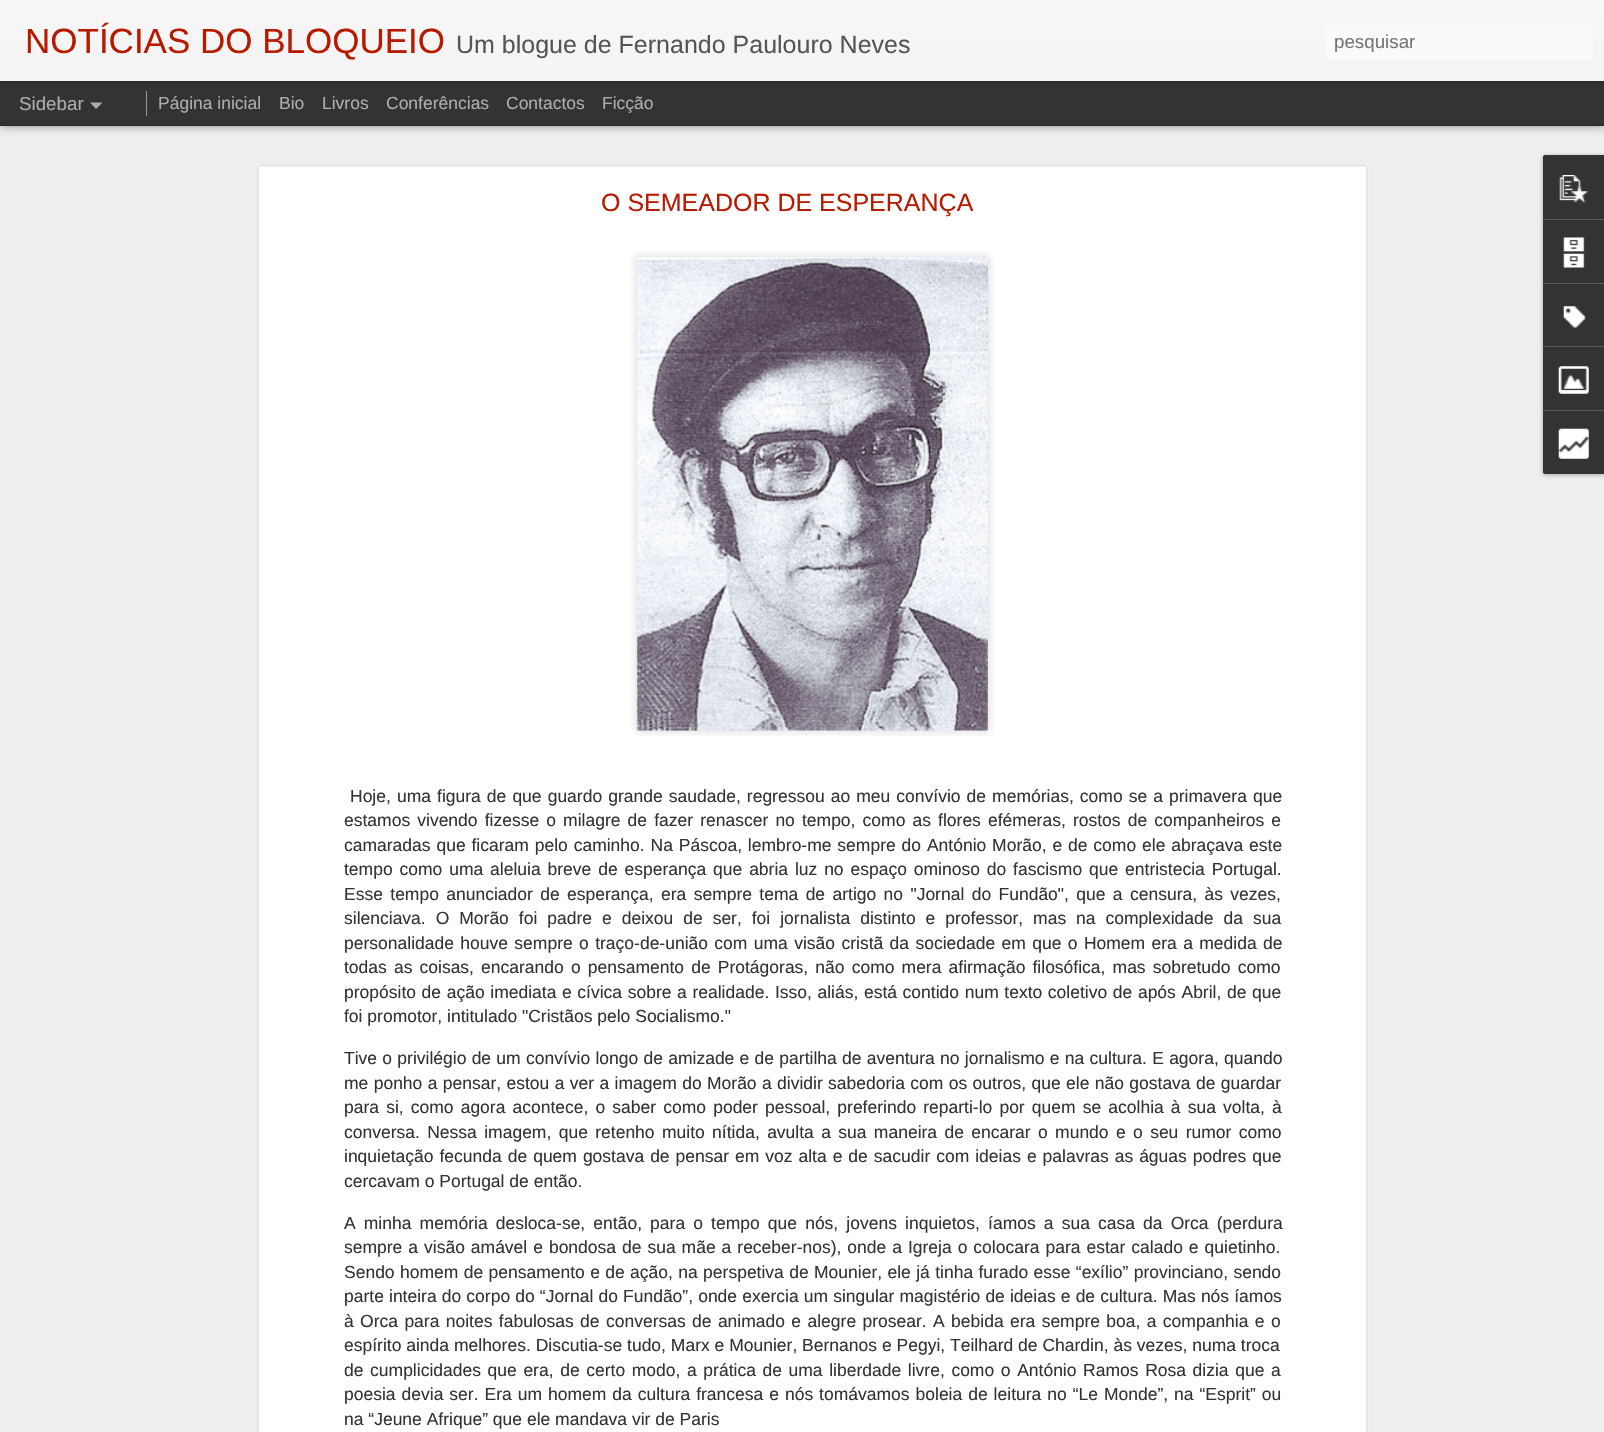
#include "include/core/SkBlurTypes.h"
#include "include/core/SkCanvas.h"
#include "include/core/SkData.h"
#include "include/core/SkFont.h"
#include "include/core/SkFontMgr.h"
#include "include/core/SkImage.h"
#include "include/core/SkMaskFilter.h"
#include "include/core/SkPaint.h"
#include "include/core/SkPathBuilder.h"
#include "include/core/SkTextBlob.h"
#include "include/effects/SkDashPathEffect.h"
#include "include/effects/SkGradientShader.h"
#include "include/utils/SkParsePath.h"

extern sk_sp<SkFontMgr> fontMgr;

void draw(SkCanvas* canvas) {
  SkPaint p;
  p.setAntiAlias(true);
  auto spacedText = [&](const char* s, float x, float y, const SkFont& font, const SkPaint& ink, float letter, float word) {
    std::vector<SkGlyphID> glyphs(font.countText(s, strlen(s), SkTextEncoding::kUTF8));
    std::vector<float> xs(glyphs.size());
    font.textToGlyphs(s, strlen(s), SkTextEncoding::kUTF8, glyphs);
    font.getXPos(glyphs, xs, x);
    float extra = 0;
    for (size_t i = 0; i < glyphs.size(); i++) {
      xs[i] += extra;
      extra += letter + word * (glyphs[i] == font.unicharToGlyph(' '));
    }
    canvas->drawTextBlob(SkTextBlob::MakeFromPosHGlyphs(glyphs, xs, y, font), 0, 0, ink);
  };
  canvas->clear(SkColorSetRGB(51, 51, 51));
  p.setColor(SkColorSetRGB(238, 238, 238));
  canvas->drawRect(SkRect::MakeLTRB(0, 126, 1604, 1432), p);
  p.setColor(SkColorSetARGB(128, 0, 0, 0));
  p.setMaskFilter(SkMaskFilter::MakeBlur(kNormal_SkBlurStyle, 5));
  canvas->drawRect(SkRect::MakeLTRB(0, 81, 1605, 125), p);
  p.setMaskFilter(nullptr);
  p.setColor(SkColorSetRGB(51, 51, 51));
  canvas->drawRect(SkRect::MakeLTRB(0, 81, 1604, 125), p);
  p.setColor(SkColorSetARGB(77, 0, 0, 0));
  p.setMaskFilter(SkMaskFilter::MakeBlur(kNormal_SkBlurStyle, 3));
  canvas->drawRect(SkRect::MakeLTRB(0, 0, 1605, 81), p);
  p.setMaskFilter(nullptr);
  {
    const SkColor colors[] = {SkColorSetRGB(247, 247, 247), SkColorSetRGB(244, 244, 244)};
    const float stops[] = {0, 1};
    const SkPoint ends[] = {{0, 0}, {0, 81}};
    p.setShader(SkGradientShader::MakeLinear(ends, colors, stops, 2, SkTileMode::kClamp));
    p.setAlpha(255);
  }
  canvas->drawRect(SkRect::MakeLTRB(0, 0, 1604, 81), p);
  p.setShader(nullptr);
  p.setColor(SkColorSetRGB(250, 250, 250));
  canvas->drawRoundRect(SkRect::MakeLTRB(1325, 23, 1593, 60), 4, 4, p);
  p.setColor(SkColorSetRGB(173, 173, 173));
  canvas->drawPath(SkPathBuilder().moveTo(90, 102.5f).lineTo(102.5f, 102.5f).lineTo(96, 109).close().detach(), p);
  p.setColor(SkColorSetRGB(153, 153, 153));
  canvas->drawRect(SkRect::MakeLTRB(146, 91, 147, 116), p);
  p.setColor(SK_ColorWHITE);
  canvas->drawRect(SkRect::MakeLTRB(256, 164, 1369, 1432), p);
  canvas->drawImageRect(SkImages::DeferredFromEncodedData(SkData::MakeFromFileName("images/1.png")), SkRect::MakeLTRB(256, 164, 1369, 1432), SkSamplingOptions());
  canvas->drawImageRect(SkImages::DeferredFromEncodedData(SkData::MakeFromFileName("images/2.png")), SkRect::MakeLTRB(631, 251, 994, 736), SkSamplingOptions());
  canvas->drawImageRect(SkImages::DeferredFromEncodedData(SkData::MakeFromFileName("images/3.png")), SkRect::MakeLTRB(636, 257, 988, 731), SkSamplingOptions());
  p.setColor(SkColorSetARGB(77, 0, 0, 0));
  p.setMaskFilter(SkMaskFilter::MakeBlur(kNormal_SkBlurStyle, 2));
  canvas->drawRoundRect(SkRect::MakeLTRB(1543, 156, 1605, 475), 2.5f, 2.5f, p);
  p.setMaskFilter(nullptr);
  p.setColor(SkColorSetRGB(51, 51, 51));
  canvas->drawPath(SkPathBuilder().moveTo(1545.5f, 155).lineTo(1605, 155).lineTo(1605, 474).lineTo(1545.5f, 474).cubicTo(1544, 474, 1543, 473, 1543, 471.5f).lineTo(1543, 157.5f).cubicTo(1543, 156, 1544, 155, 1545.5f, 155).close().detach(), p);
  canvas->drawPath(SkPathBuilder().moveTo(1545.5f, 155).lineTo(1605, 155).lineTo(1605, 219).lineTo(1543, 219).lineTo(1543, 157.5f).cubicTo(1543, 156, 1544, 155, 1545.5f, 155).close().detach(), p);
  canvas->drawImageRect(SkImages::DeferredFromEncodedData(SkData::MakeFromFileName("images/4.png")), SkRect::MakeLTRB(1559, 175, 1588, 203), SkSamplingOptions());
  p.setColor(SkColorSetRGB(88, 88, 88));
  canvas->drawRect(SkRect::MakeLTRB(1543, 219, 1604, 220), p);
  canvas->drawImageRect(SkImages::DeferredFromEncodedData(SkData::MakeFromFileName("images/5.png")), SkRect::MakeLTRB(1563, 237, 1585, 268), SkSamplingOptions());
  canvas->drawRect(SkRect::MakeLTRB(1543, 283, 1604, 284), p);
  canvas->drawImageRect(SkImages::DeferredFromEncodedData(SkData::MakeFromFileName("images/6.png")), SkRect::MakeLTRB(1563, 306, 1586, 328), SkSamplingOptions());
  canvas->drawRect(SkRect::MakeLTRB(1543, 346, 1604, 347), p);
  canvas->drawImageRect(SkImages::DeferredFromEncodedData(SkData::MakeFromFileName("images/7.png")), SkRect::MakeLTRB(1558, 366, 1589, 394), SkSamplingOptions());
  p.setColor(SkColorSetRGB(51, 51, 51));
  canvas->drawPath(SkPathBuilder().moveTo(1543, 410).lineTo(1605, 410).lineTo(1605, 474).lineTo(1545.5f, 474).cubicTo(1544, 474, 1543, 473, 1543, 471.5f).close().detach(), p);
  p.setColor(SkColorSetRGB(88, 88, 88));
  canvas->drawRect(SkRect::MakeLTRB(1543, 410, 1604, 411), p);
  canvas->drawImageRect(SkImages::DeferredFromEncodedData(SkData::MakeFromFileName("images/8.png")), SkRect::MakeLTRB(1558, 428, 1589, 459), SkSamplingOptions());
  SkFont font1(fontMgr->matchFamilyStyle("Liberation Sans", SkFontStyle::Normal()), 35);
  font1.setSubpixel(true);
  p.setColor(SkColorSetRGB(184, 26, 0));
  canvas->drawString("NOTÍCIAS DO BLOQUEIO", 25, 53, font1, p);
  SkFont font2(fontMgr->matchFamilyStyle("Liberation Sans", SkFontStyle::Normal()), 25);
  font2.setSubpixel(true);
  p.setColor(SkColorSetRGB(85, 85, 85));
  canvas->drawString("Um blogue de Fernando Paulouro Neves", 456, 53, font2, p);
  SkFont font3(fontMgr->matchFamilyStyle("Liberation Sans", SkFontStyle::Normal()), 18.75f);
  font3.setSubpixel(true);
  p.setColor(SkColorSetRGB(117, 117, 117));
  canvas->drawString("pesquisar", 1334, 48, font3, p);
  p.setColor(SkColorSetRGB(173, 173, 173));
  canvas->drawString("Sidebar", 19, 110, font3, p);
  SkFont font4(fontMgr->matchFamilyStyle("Liberation Sans", SkFontStyle::Normal()), 17.5f);
  font4.setSubpixel(true);
  canvas->drawString("Página inicial", 158, 109, font4, p);
  canvas->drawString("Bio", 279, 109, font4, p);
  canvas->drawString("Livros", 322, 109, font4, p);
  canvas->drawString("Conferências", 386, 109, font4, p);
  canvas->drawString("Contactos", 506, 109, font4, p);
  canvas->drawString("Ficção", 602, 109, font4, p);
  p.setColor(SkColorSetRGB(184, 26, 0));
  canvas->drawString("O SEMEADOR DE ESPERANÇA", 601, 211, font2, p);
  p.setColor(SkColorSetRGB(51, 51, 51));
  spacedText("Hoje, uma figura de que guardo grande saudade, regressou ao meu convívio de memórias, como se a primavera que", 350, 802, font4, p, 0, 1.2f);
  spacedText("estamos vivendo fizesse o milagre de fazer renascer no tempo, como as flores efémeras, rostos de companheiros e", 344, 826, font4, p, 0, 2.25f);
  spacedText("camaradas que ficaram pelo caminho. Na Páscoa, lembro-me sempre do António Morão, e de como ele abraçava este", 344, 851, font4, p, 0, 1);
  spacedText("tempo como uma aleluia breve de esperança que abria luz no espaço ominoso do fascismo que entristecia Portugal.", 344, 875, font4, p, 0, 2);
  spacedText("Esse tempo anunciador de esperança, era sempre tema de artigo no \"Jornal do Fundão\", que a censura, às vezes,", 344, 900, font4, p, 0, 2.5f);
  spacedText("silenciava. O Morão foi padre e deixou de ser, foi jornalista distinto e professor, mas na complexidade da sua", 344, 924, font4, p, 0, 5.1f);
  spacedText("personalidade houve sempre o traço-de-união com uma visão cristã da sociedade em que o Homem era a medida de", 344, 949, font4, p, 0, 1.5f);
  spacedText("todas as coisas, encarando o pensamento de Protágoras, não como mera afirmação filosófica, mas sobretudo como", 344, 973, font4, p, 0, 2.25f);
  spacedText("propósito de ação imediata e cívica sobre a realidade. Isso, aliás, está contido num texto coletivo de após Abril, de que", 344, 998, font4, p, 0, 0.75f);
  canvas->drawString("foi promotor, intitulado \"Cristãos pelo Socialismo.\"", 344, 1022, font4, p);
  spacedText("Tive o privilégio de um convívio longo de amizade e de partilha de aventura no jornalismo e na cultura. E agora, quando", 344, 1064, font4, p, 0, 0.4f);
  spacedText("me ponho a pensar, estou a ver a imagem do Morão a dividir sabedoria com os outros, que ele não gostava de guardar", 344, 1089, font4, p, 0, 0.5f);
  spacedText("para si, como agora acontece, o saber como poder pessoal, preferindo reparti-lo por quem se acolhia à sua volta, à", 344, 1113, font4, p, 0, 2.25f);
  spacedText("conversa. Nessa imagem, que retenho muito nítida, avulta a sua maneira de encarar o mundo e o seu rumor como", 344, 1138, font4, p, 0, 2.5f);
  spacedText("inquietação fecunda de quem gostava de pensar em voz alta e de sacudir com ideias e palavras as águas podres que", 344, 1162, font4, p, 0, 1.1f);
  canvas->drawString("cercavam o Portugal de então.", 344, 1187, font4, p);
  spacedText("A minha memória desloca-se, então, para o tempo que nós, jovens inquietos, íamos a sua casa da Orca (perdura", 344, 1229, font4, p, 0, 3.25f);
  spacedText("sempre a visão amável e bondosa de sua mãe a receber-nos), onde a Igreja o colocara para estar calado e quietinho.", 344, 1253, font4, p, 0, 1.1f);
  spacedText("Sendo homem de pensamento e de ação, na perspetiva de Mounier, ele já tinha furado esse “exílio” provinciano, sendo", 344, 1278, font4, p, 0, 0.5f);
  spacedText("parte inteira do corpo do “Jornal do Fundão”, onde exercia um singular magistério de ideias e de cultura. Mas nós íamos", 344, 1302, font4, p, 0, 0.25f);
  spacedText("à Orca para noites fabulosas de conversas de animado e alegre prosear. A bebida era sempre boa, a companhia e o", 344, 1327, font4, p, 0, 1.5f);
  canvas->drawString("espírito ainda melhores. Discutia-se tudo, Marx e Mounier, Bernanos e Pegyi, Teilhard de Chardin, às vezes, numa troca", 344, 1351, font4, p);
  spacedText("de cumplicidades que era, de certo modo, a prática de uma liberdade livre, como o António Ramos Rosa dizia que a", 344, 1376, font4, p, 0, 1.75f);
  spacedText("poesia devia ser. Era um homem da cultura francesa e nós tomávamos boleia de leitura no “Le Monde”, na “Esprit” ou", 344, 1400, font4, p, 0, 1.1f);
  canvas->drawString("na “Jeune Afrique” que ele mandava vir de Paris", 344, 1425, font4, p);
}
